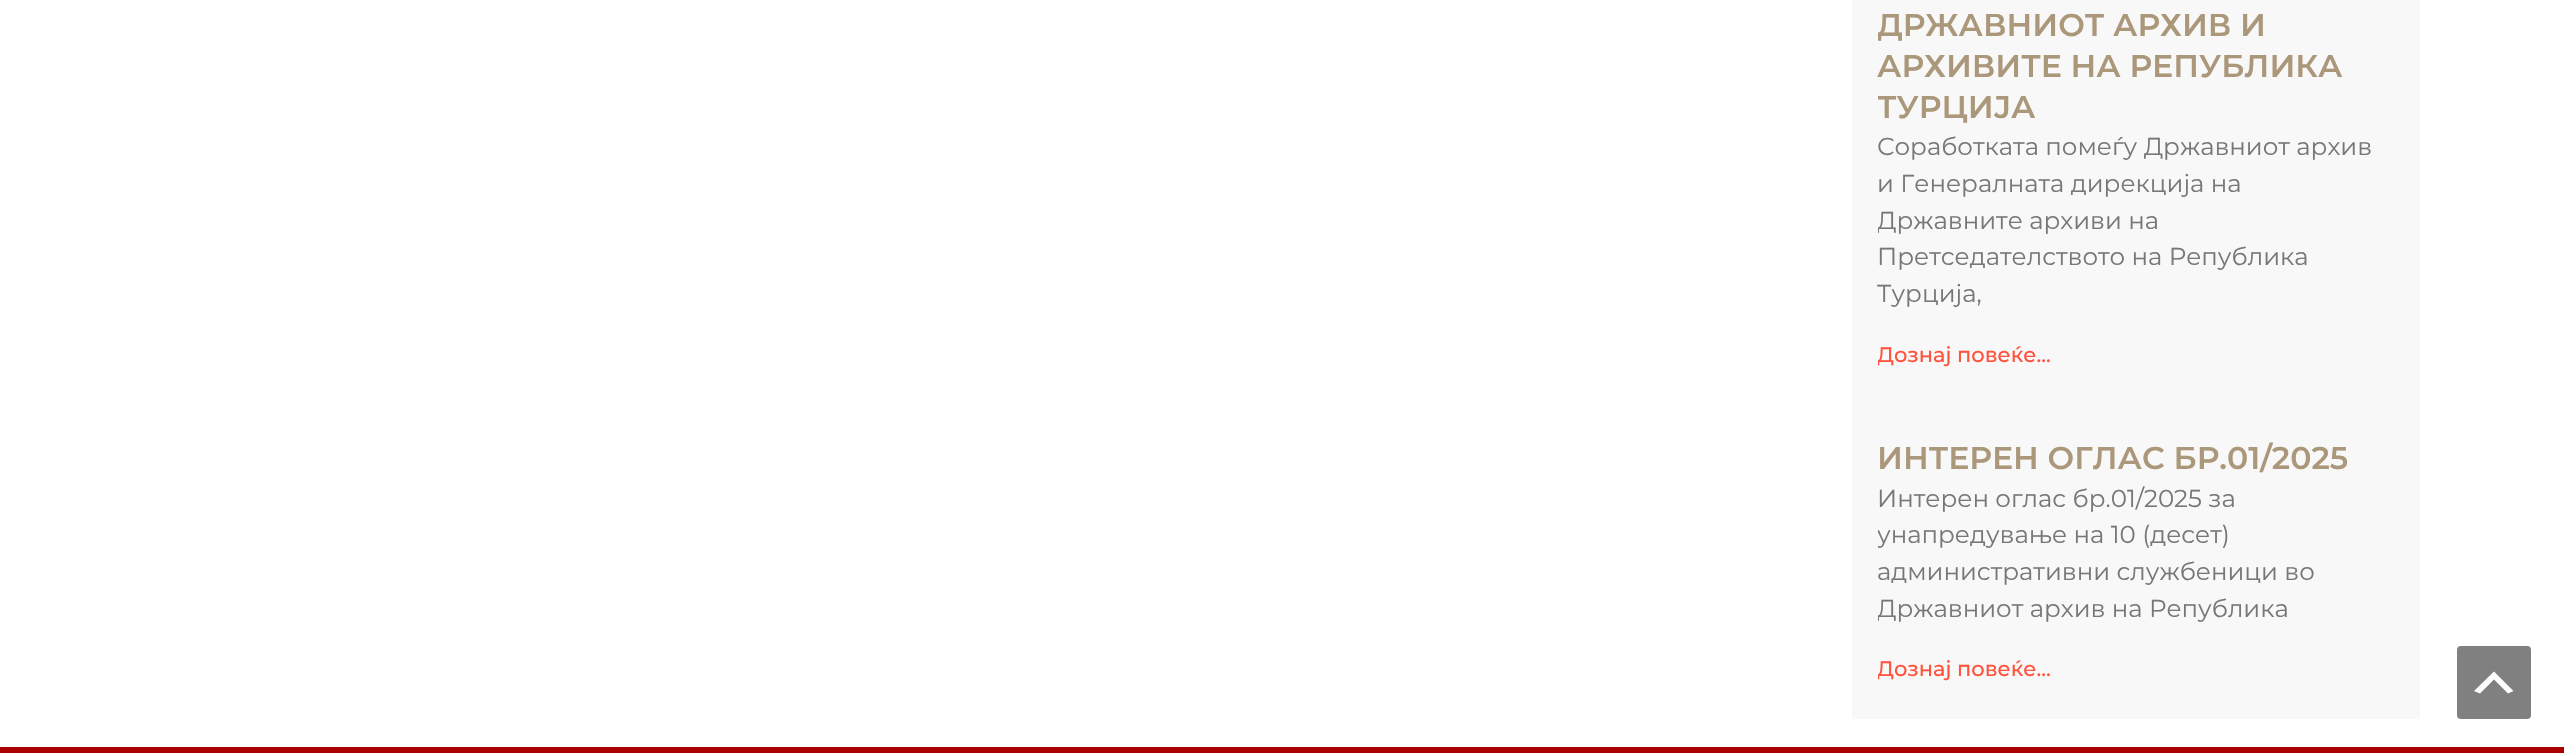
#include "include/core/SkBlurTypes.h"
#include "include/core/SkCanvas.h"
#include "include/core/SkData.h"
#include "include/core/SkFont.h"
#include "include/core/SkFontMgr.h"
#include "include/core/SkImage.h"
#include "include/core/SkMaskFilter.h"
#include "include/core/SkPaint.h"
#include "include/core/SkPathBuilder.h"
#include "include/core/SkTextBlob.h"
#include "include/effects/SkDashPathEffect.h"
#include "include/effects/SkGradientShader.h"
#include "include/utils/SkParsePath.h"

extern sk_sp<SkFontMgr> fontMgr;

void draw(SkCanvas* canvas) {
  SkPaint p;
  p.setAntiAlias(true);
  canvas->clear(SK_ColorWHITE);
  p.setColor(SkColorSetRGB(248, 248, 248));
  canvas->drawRect(SkRect::MakeLTRB(1852, 0, 2420, 719), p);
  p.setColor(SkColorSetRGB(171, 0, 0));
  canvas->drawRect(SkRect::MakeLTRB(0, 747, 2564, 753), p);
  p.setColor(SkColorSetRGB(128, 128, 128));
  canvas->drawRoundRect(SkRect::MakeLTRB(2457, 646, 2531, 719), 4, 4, p);
  p.setColor(SK_ColorWHITE);
  canvas->drawPath(SkPathBuilder().moveTo(2508, 693.5f).lineTo(2494, 679.5f).lineTo(2480, 693.5f).lineTo(2474, 691).lineTo(2494, 671.5f).lineTo(2513.5f, 691).close().detach(), p);
  canvas->save();
  canvas->clipRect(SkRect::MakeLTRB(1878, 0, 2394, 378));
  SkFont font1(fontMgr->matchFamilyStyle("Montserrat", SkFontStyle(600, SkFontStyle::kNormal_Width, SkFontStyle::kUpright_Slant)), 31.5f);
  font1.setSubpixel(true);
  p.setColor(SkColorSetRGB(171, 152, 122));
  canvas->drawString("ДРЖАВНИОТ АРХИВ И", 1877, 36, font1, p);
  canvas->restore();
  canvas->drawString("АРХИВИТЕ НА РЕПУБЛИКА", 1877, 77, font1, p);
  canvas->save();
  canvas->clipRect(SkRect::MakeLTRB(1878, 0, 2394, 378));
  canvas->drawString("ТУРЦИЈА", 1877, 118, font1, p);
  canvas->restore();
  SkFont font2(fontMgr->matchFamilyStyle("Montserrat", SkFontStyle::Normal()), 24.5f);
  font2.setSubpixel(true);
  p.setColor(SkColorSetRGB(119, 119, 119));
  canvas->drawString("Соработката помеѓу Државниот архив", 1877, 155, font2, p);
  canvas->drawString("и Генералната дирекција на", 1877, 192, font2, p);
  canvas->save();
  canvas->clipRect(SkRect::MakeLTRB(1878, 0, 2394, 378));
  canvas->drawString("Државните архиви на", 1877, 229, font2, p);
  canvas->restore();
  canvas->drawString("Претседателството на Република", 1877, 265, font2, p);
  canvas->drawString("Турција,", 1877, 302, font2, p);
  canvas->save();
  canvas->clipRect(SkRect::MakeLTRB(1878, 0, 2394, 378));
  SkFont font3(fontMgr->matchFamilyStyle("Montserrat", SkFontStyle(500, SkFontStyle::kNormal_Width, SkFontStyle::kUpright_Slant)), 21);
  font3.setSubpixel(true);
  p.setColor(SkColorSetRGB(255, 83, 61));
  canvas->drawString("Дознај повеќе...", 1877, 362, font3, p);
  canvas->restore();
  p.setColor(SkColorSetRGB(171, 152, 122));
  canvas->drawString("ИНТЕРЕН ОГЛАС БР.01/2025", 1877, 469, font1, p);
  p.setColor(SkColorSetRGB(119, 119, 119));
  canvas->drawString("Интерен оглас бр.01/2025 за", 1877, 507, font2, p);
  canvas->save();
  canvas->clipRect(SkRect::MakeLTRB(1878, 439, 2394, 693));
  canvas->drawString("унапредување на 10 (десет)", 1877, 543, font2, p);
  canvas->restore();
  canvas->drawString("административни службеници во", 1877, 580, font2, p);
  canvas->save();
  canvas->clipRect(SkRect::MakeLTRB(1878, 439, 2394, 693));
  canvas->drawString("Државниот архив на Република", 1877, 617, font2, p);
  p.setColor(SkColorSetRGB(255, 83, 61));
  canvas->drawString("Дознај повеќе...", 1877, 676, font3, p);
  canvas->restore();
}
